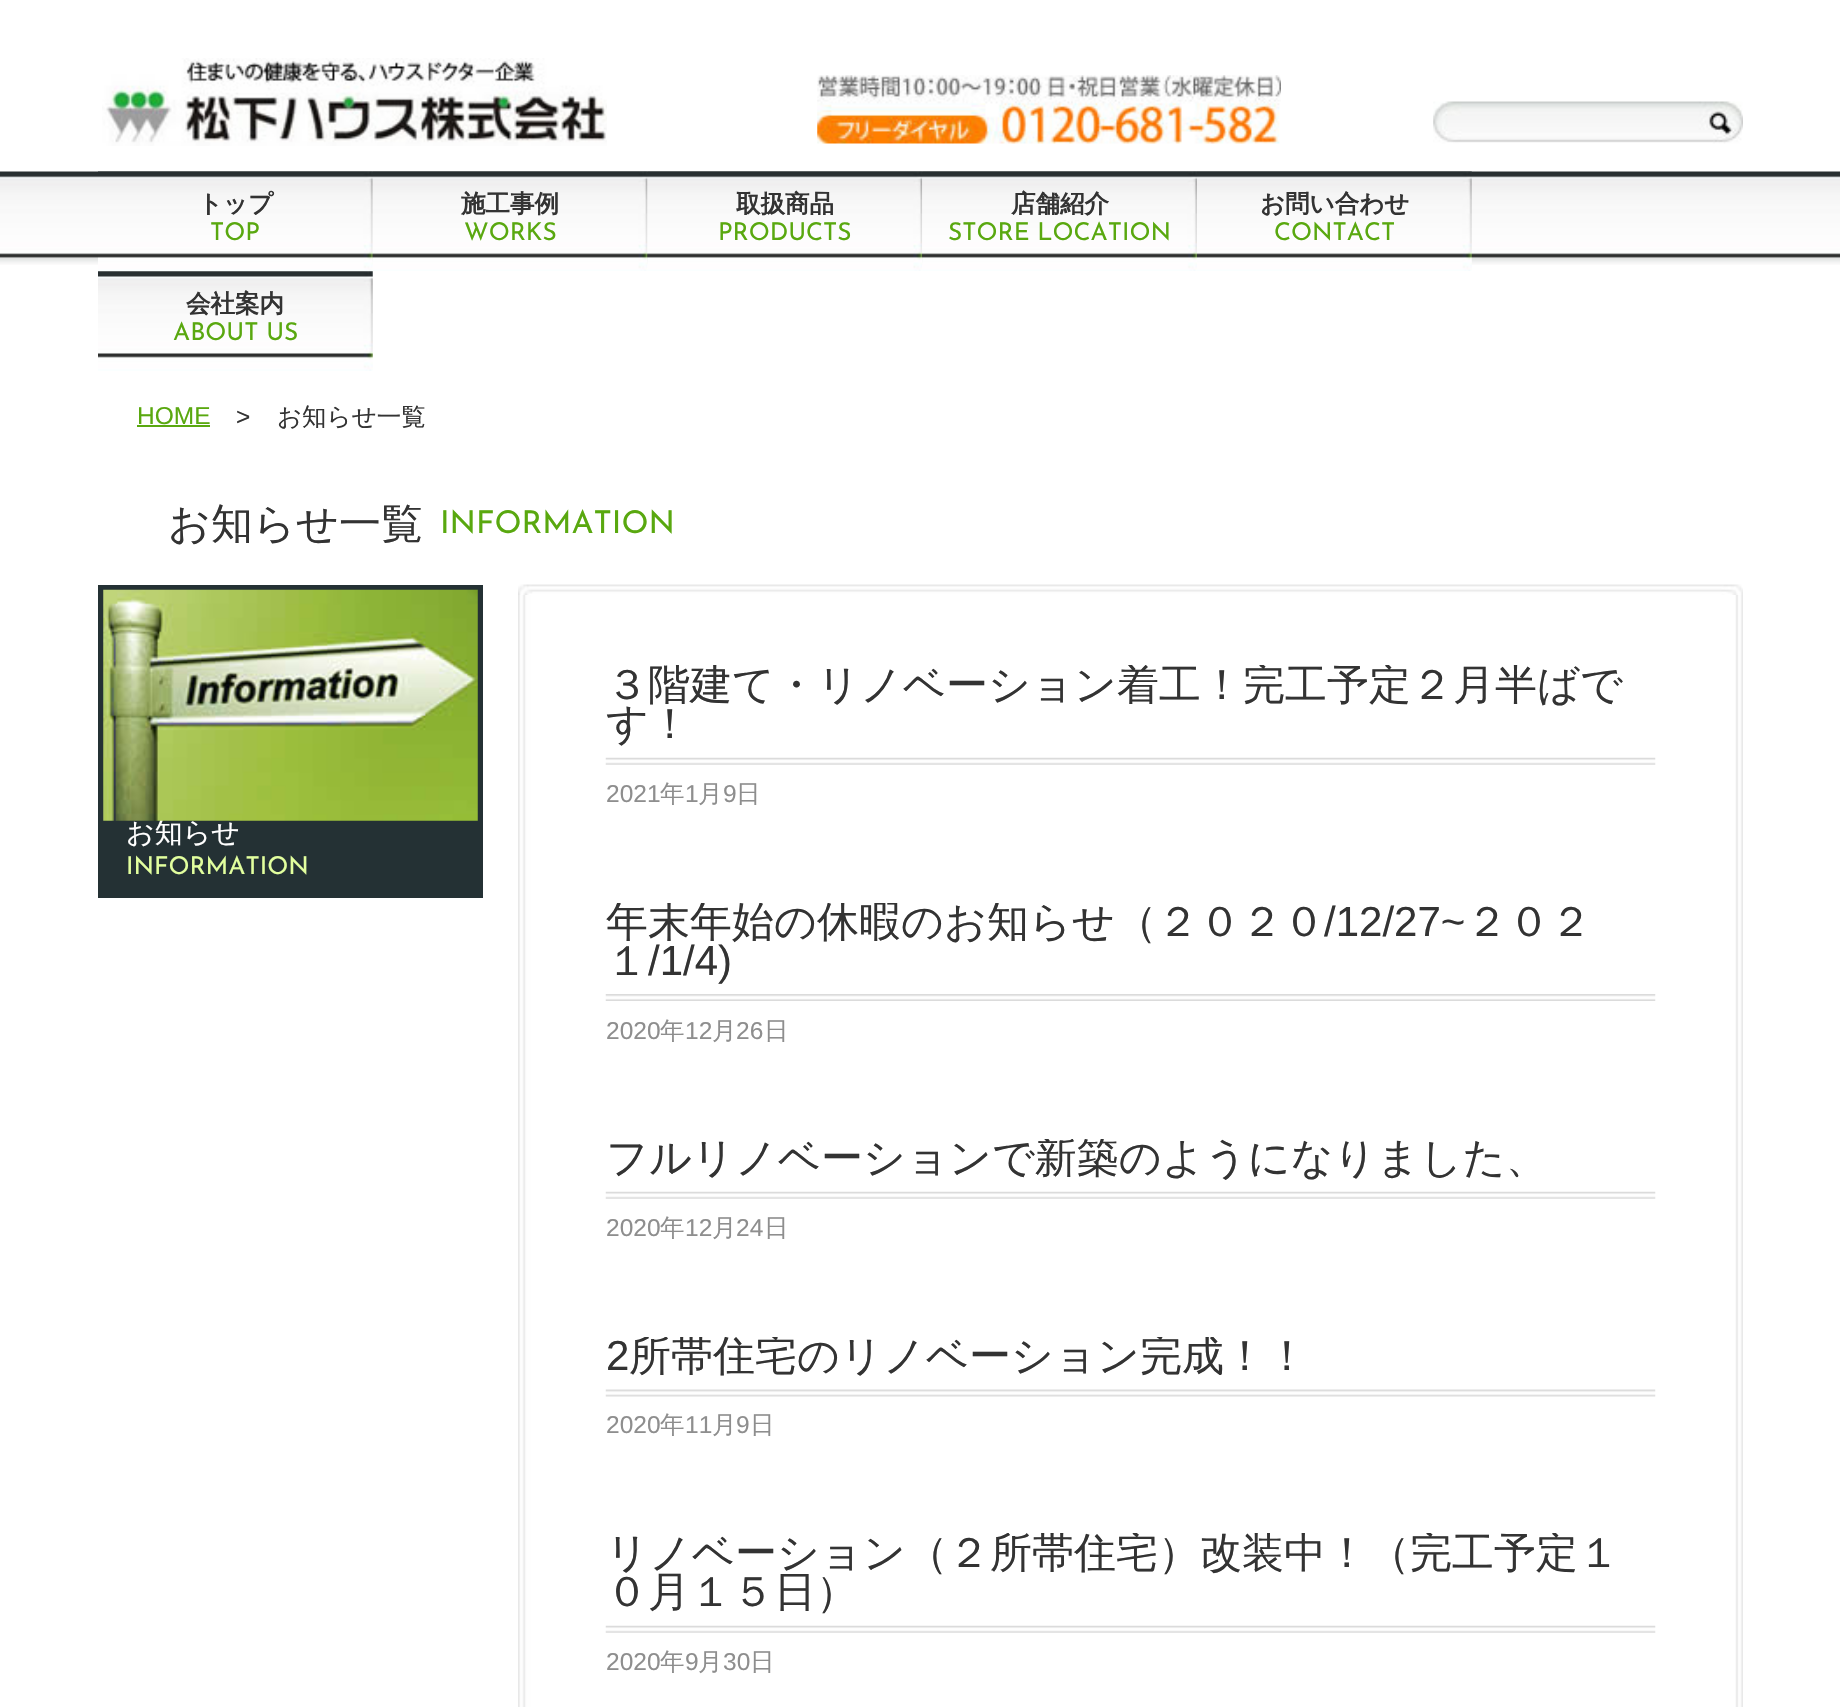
#include "include/core/SkBlurTypes.h"
#include "include/core/SkCanvas.h"
#include "include/core/SkData.h"
#include "include/core/SkFont.h"
#include "include/core/SkFontMgr.h"
#include "include/core/SkImage.h"
#include "include/core/SkMaskFilter.h"
#include "include/core/SkPaint.h"
#include "include/core/SkPathBuilder.h"
#include "include/core/SkTextBlob.h"
#include "include/effects/SkDashPathEffect.h"
#include "include/effects/SkGradientShader.h"
#include "include/utils/SkParsePath.h"

extern sk_sp<SkFontMgr> fontMgr;

void draw(SkCanvas* canvas) {
  SkPaint p;
  p.setAntiAlias(true);
  canvas->clear(SK_ColorWHITE);
  canvas->drawImageRect(SkImages::DeferredFromEncodedData(SkData::MakeFromFileName("images/1.png")), SkRect::MakeLTRB(102, 58, 607, 146), SkSamplingOptions());
  canvas->drawImageRect(SkImages::DeferredFromEncodedData(SkData::MakeFromFileName("images/2.png")), SkRect::MakeLTRB(817, 75, 1281, 144), SkSamplingOptions());
  canvas->drawImageRect(SkImages::DeferredFromEncodedData(SkData::MakeFromFileName("images/3.png")), SkRect::MakeLTRB(1433, 101, 1743, 144), SkSamplingOptions());
  canvas->drawImageRect(SkImages::DeferredFromEncodedData(SkData::MakeFromFileName("images/4.png")), SkRect::MakeLTRB(0, 171, 1840, 265), SkSamplingOptions());
  canvas->drawImageRect(SkImages::DeferredFromEncodedData(SkData::MakeFromFileName("images/5.png")), SkRect::MakeLTRB(98, 171, 373, 271), SkSamplingOptions());
  canvas->drawImageRect(SkImages::DeferredFromEncodedData(SkData::MakeFromFileName("images/6.png")), SkRect::MakeLTRB(372, 171, 648, 271), SkSamplingOptions());
  canvas->drawImageRect(SkImages::DeferredFromEncodedData(SkData::MakeFromFileName("images/7.png")), SkRect::MakeLTRB(647, 171, 923, 271), SkSamplingOptions());
  canvas->drawImageRect(SkImages::DeferredFromEncodedData(SkData::MakeFromFileName("images/8.png")), SkRect::MakeLTRB(922, 171, 1197, 271), SkSamplingOptions());
  canvas->drawImageRect(SkImages::DeferredFromEncodedData(SkData::MakeFromFileName("images/5.png")), SkRect::MakeLTRB(1197, 171, 1472, 271), SkSamplingOptions());
  canvas->drawImageRect(SkImages::DeferredFromEncodedData(SkData::MakeFromFileName("images/9.png")), SkRect::MakeLTRB(98, 271, 373, 371), SkSamplingOptions());
  p.setColor(SkColorSetRGB(89, 168, 15));
  canvas->drawRect(SkRect::MakeLTRB(137, 425, 210, 427), p);
  p.setColor(SkColorSetRGB(36, 49, 52));
  canvas->drawRect(SkRect::MakeLTRB(98, 585, 483, 898), p);
  canvas->drawImageRect(SkImages::DeferredFromEncodedData(SkData::MakeFromFileName("images/11.png")), SkRect::MakeLTRB(518, 584, 1743, 595), SkSamplingOptions());
  canvas->drawImageRect(SkImages::DeferredFromEncodedData(SkData::MakeFromFileName("images/12.png")), SkRect::MakeLTRB(518, 595, 1743, 1707), SkSamplingOptions());
  canvas->drawImageRect(SkImages::DeferredFromEncodedData(SkData::MakeFromFileName("images/13.png")), SkRect::MakeLTRB(605, 757, 1656, 765), SkSamplingOptions());
  canvas->drawImageRect(SkImages::DeferredFromEncodedData(SkData::MakeFromFileName("images/14.png")), SkRect::MakeLTRB(605, 994, 1656, 1001), SkSamplingOptions());
  canvas->drawImageRect(SkImages::DeferredFromEncodedData(SkData::MakeFromFileName("images/13.png")), SkRect::MakeLTRB(605, 1191, 1656, 1199), SkSamplingOptions());
  canvas->drawImageRect(SkImages::DeferredFromEncodedData(SkData::MakeFromFileName("images/15.png")), SkRect::MakeLTRB(605, 1389, 1656, 1397), SkSamplingOptions());
  canvas->drawImageRect(SkImages::DeferredFromEncodedData(SkData::MakeFromFileName("images/13.png")), SkRect::MakeLTRB(605, 1625, 1656, 1633), SkSamplingOptions());
  SkFont font1(fontMgr->matchFamilyStyle("WenQuanYi Zen Hei", SkFontStyle::Bold()), 24.5f);
  font1.setSubpixel(true);
  p.setColor(SkColorSetRGB(51, 51, 51));
  canvas->drawString("トップ", 198, 212, font1, p);
  SkFont font2(fontMgr->matchFamilyStyle("Josefin Sans", SkFontStyle(100, SkFontStyle::kNormal_Width, SkFontStyle::kUpright_Slant)), 24.5f);
  font2.setSubpixel(true);
  p.setColor(SkColorSetRGB(89, 168, 15));
  canvas->drawString("TOP", 210, 240, font2, p);
  p.setColor(SkColorSetRGB(51, 51, 51));
  canvas->drawString("施工事例", 461, 212, font1, p);
  p.setColor(SkColorSetRGB(89, 168, 15));
  canvas->drawString("WORKS", 464, 240, font2, p);
  p.setColor(SkColorSetRGB(51, 51, 51));
  canvas->drawString("取扱商品", 736, 212, font1, p);
  p.setColor(SkColorSetRGB(89, 168, 15));
  canvas->drawString("PRODUCTS", 718, 240, font2, p);
  p.setColor(SkColorSetRGB(51, 51, 51));
  canvas->drawString("店舗紹介", 1011, 212, font1, p);
  p.setColor(SkColorSetRGB(89, 168, 15));
  canvas->drawString("STORE LOCATION", 948, 240, font2, p);
  p.setColor(SkColorSetRGB(51, 51, 51));
  canvas->drawString("お問い合わせ", 1260, 212, font1, p);
  p.setColor(SkColorSetRGB(89, 168, 15));
  canvas->drawString("CONTACT", 1274, 240, font2, p);
  p.setColor(SkColorSetRGB(51, 51, 51));
  canvas->drawString("会社案内", 186, 312, font1, p);
  p.setColor(SkColorSetRGB(89, 168, 15));
  canvas->drawString("ABOUT US", 173, 340, font2, p);
  SkFont font3(fontMgr->matchFamilyStyle("Liberation Sans", SkFontStyle::Normal()), 24.5f);
  font3.setSubpixel(true);
  canvas->drawString("HOME", 137, 424, font3, p);
  p.setColor(SkColorSetRGB(51, 51, 51));
  canvas->drawString(">", 236, 425, font3, p);
  SkFont font4(fontMgr->matchFamilyStyle("WenQuanYi Zen Hei", SkFontStyle(500, SkFontStyle::kNormal_Width, SkFontStyle::kUpright_Slant)), 24.5f);
  font4.setSubpixel(true);
  canvas->drawString("お知らせ一覧", 277, 425, font4, p);
  SkFont font5(fontMgr->matchFamilyStyle("WenQuanYi Zen Hei", SkFontStyle(500, SkFontStyle::kNormal_Width, SkFontStyle::kUpright_Slant)), 42);
  font5.setSubpixel(true);
  canvas->drawString("お知らせ一覧", 168, 538, font5, p);
  SkFont font6(fontMgr->matchFamilyStyle("Josefin Sans", SkFontStyle(100, SkFontStyle::kNormal_Width, SkFontStyle::kUpright_Slant)), 31.5f);
  font6.setSubpixel(true);
  p.setColor(SkColorSetRGB(89, 168, 15));
  canvas->drawString("INFORMATION", 440, 533, font6, p);
  SkFont font7(fontMgr->matchFamilyStyle("WenQuanYi Zen Hei", SkFontStyle(500, SkFontStyle::kNormal_Width, SkFontStyle::kUpright_Slant)), 28);
  font7.setSubpixel(true);
  p.setColor(SK_ColorWHITE);
  canvas->drawString("お知らせ", 126, 842, font7, p);
  canvas->drawImageRect(SkImages::DeferredFromEncodedData(SkData::MakeFromFileName("images/10.png")), SkRect::MakeLTRB(103, 589, 478, 821), SkSamplingOptions());
  p.setColor(SkColorSetRGB(226, 255, 158));
  canvas->drawString("INFORMATION", 126, 874, font2, p);
  canvas->save();
  canvas->clipRect(SkRect::MakeLTRB(606, 665, 1656, 903));
  p.setColor(SkColorSetRGB(51, 51, 51));
  canvas->drawString("３階建て・リノベーション着工！完工予定２月半ばで", 606, 699, font5, p);
  canvas->restore();
  canvas->drawString("す！", 606, 738, font5, p);
  p.setColor(SkColorSetRGB(142, 142, 142));
  canvas->drawString("2021", 606, 802, font3, p);
  canvas->drawString("年", 660, 802, font4, p);
  canvas->drawString("1", 685, 802, font3, p);
  canvas->drawString("月", 698, 802, font4, p);
  canvas->drawString("9", 723, 802, font3, p);
  canvas->drawString("日", 736, 802, font4, p);
  canvas->save();
  canvas->clipRect(SkRect::MakeLTRB(606, 903, 1656, 1139));
  p.setColor(SkColorSetRGB(51, 51, 51));
  canvas->drawString("年末年始の休暇のお知らせ（２０２０", 606, 936, font5, p);
  canvas->restore();
  SkFont font8(fontMgr->matchFamilyStyle("Liberation Sans", SkFontStyle::Normal()), 42);
  font8.setSubpixel(true);
  canvas->drawString("/12/27~", 1324, 936, font8, p);
  canvas->drawString("２０２", 1466, 936, font5, p);
  canvas->drawString("１", 606, 975, font5, p);
  canvas->drawString("/1/4)", 648, 975, font8, p);
  p.setColor(SkColorSetRGB(142, 142, 142));
  canvas->drawString("2020", 606, 1039, font3, p);
  canvas->drawString("年", 660, 1039, font4, p);
  canvas->drawString("12", 685, 1039, font3, p);
  canvas->drawString("月", 712, 1039, font4, p);
  canvas->drawString("26", 736, 1039, font3, p);
  canvas->drawString("日", 764, 1039, font4, p);
  canvas->save();
  canvas->clipRect(SkRect::MakeLTRB(606, 1139, 1656, 1337));
  p.setColor(SkColorSetRGB(51, 51, 51));
  canvas->drawString("フルリノベーションで新築のようになりました、", 606, 1172, font5, p);
  canvas->restore();
  p.setColor(SkColorSetRGB(142, 142, 142));
  canvas->drawString("2020", 606, 1236, font3, p);
  canvas->drawString("年", 660, 1236, font4, p);
  canvas->drawString("12", 685, 1236, font3, p);
  canvas->drawString("月", 712, 1236, font4, p);
  canvas->drawString("24", 736, 1236, font3, p);
  canvas->drawString("日", 764, 1236, font4, p);
  p.setColor(SkColorSetRGB(51, 51, 51));
  canvas->drawString("2", 606, 1370, font8, p);
  canvas->save();
  canvas->clipRect(SkRect::MakeLTRB(606, 1337, 1656, 1533));
  canvas->drawString("所帯住宅のリノベーション完成！！", 629, 1370, font5, p);
  canvas->restore();
  p.setColor(SkColorSetRGB(142, 142, 142));
  canvas->drawString("2020", 606, 1433, font3, p);
  canvas->drawString("年", 660, 1433, font4, p);
  canvas->drawString("11", 685, 1433, font3, p);
  canvas->drawString("月", 712, 1433, font4, p);
  canvas->drawString("9", 736, 1433, font3, p);
  canvas->drawString("日", 750, 1433, font4, p);
  canvas->save();
  canvas->clipRect(SkRect::MakeLTRB(606, 1533, 1656, 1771));
  p.setColor(SkColorSetRGB(51, 51, 51));
  canvas->drawString("リノベーション（２所帯住宅）改装中！（完工予定１", 606, 1567, font5, p);
  canvas->restore();
  canvas->drawString("０月１５日）", 606, 1606, font5, p);
  p.setColor(SkColorSetRGB(142, 142, 142));
  canvas->drawString("2020", 606, 1670, font3, p);
  canvas->drawString("年", 660, 1670, font4, p);
  canvas->drawString("9", 685, 1670, font3, p);
  canvas->drawString("月", 698, 1670, font4, p);
  canvas->drawString("30", 723, 1670, font3, p);
  canvas->drawString("日", 750, 1670, font4, p);
}
